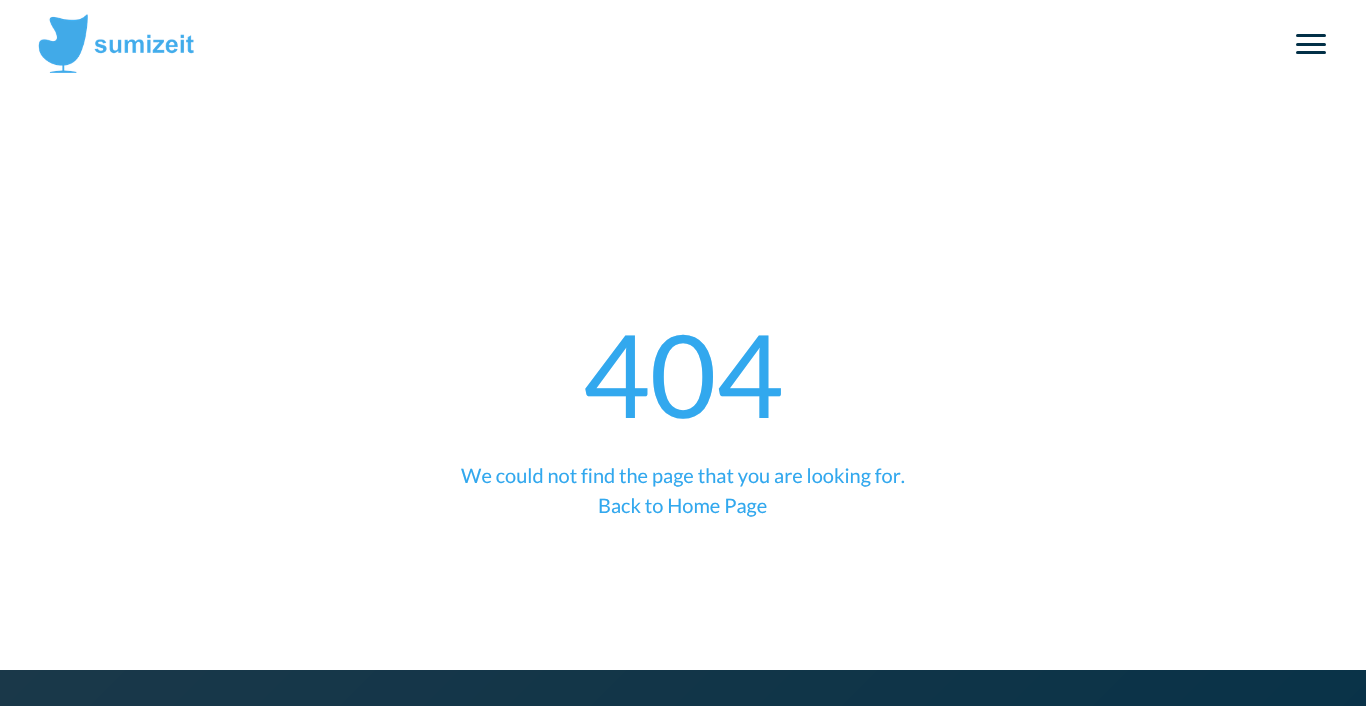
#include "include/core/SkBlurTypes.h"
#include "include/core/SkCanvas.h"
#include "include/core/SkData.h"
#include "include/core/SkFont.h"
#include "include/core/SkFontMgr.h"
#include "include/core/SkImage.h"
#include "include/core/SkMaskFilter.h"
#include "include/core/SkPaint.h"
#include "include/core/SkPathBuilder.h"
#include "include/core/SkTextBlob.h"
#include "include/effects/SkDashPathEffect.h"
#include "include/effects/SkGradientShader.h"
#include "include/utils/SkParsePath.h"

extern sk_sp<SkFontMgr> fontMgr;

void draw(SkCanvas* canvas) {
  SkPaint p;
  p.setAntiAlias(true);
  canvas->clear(SK_ColorWHITE);
  canvas->drawImageRect(SkImages::DeferredFromEncodedData(SkData::MakeFromFileName("images/1.png")), SkRect::MakeLTRB(38, 14, 194, 73), SkSamplingOptions());
  p.setColor(SkColorSetRGB(2, 48, 71));
  canvas->drawRoundRect(SkRect::MakeLTRB(1296, 34, 1326, 37), 1.5f, 1.5f, p);
  canvas->drawRoundRect(SkRect::MakeLTRB(1296, 43, 1326, 46), 1.5f, 1.5f, p);
  canvas->drawRoundRect(SkRect::MakeLTRB(1296, 51, 1326, 54), 1.5f, 1.5f, p);
  {
    const SkColor colors[] = {SkColorSetRGB(26, 56, 73), SkColorSetRGB(2, 48, 71)};
    const float stops[] = {0, 1};
    const SkPoint ends[] = {{182, 488}, {1184, 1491}};
    p.setShader(SkGradientShader::MakeLinear(ends, colors, stops, 2, SkTileMode::kClamp));
    p.setAlpha(255);
  }
  canvas->drawRect(SkRect::MakeLTRB(0, 670, 1366, 706), p);
  SkFont font1(fontMgr->matchFamilyStyle("Lato", SkFontStyle::Normal()), 115);
  font1.setSubpixel(true);
  p.setShader(nullptr);
  p.setColor(SkColorSetRGB(50, 168, 238));
  canvas->drawString("404", 583, 418, font1, p);
  SkFont font2(fontMgr->matchFamilyStyle("Lato", SkFontStyle::Normal()), 20);
  font2.setSubpixel(true);
  canvas->drawString("We could not find the page that you are looking for.", 461, 483, font2, p);
  canvas->drawString("Back to Home Page", 598, 513, font2, p);
}
